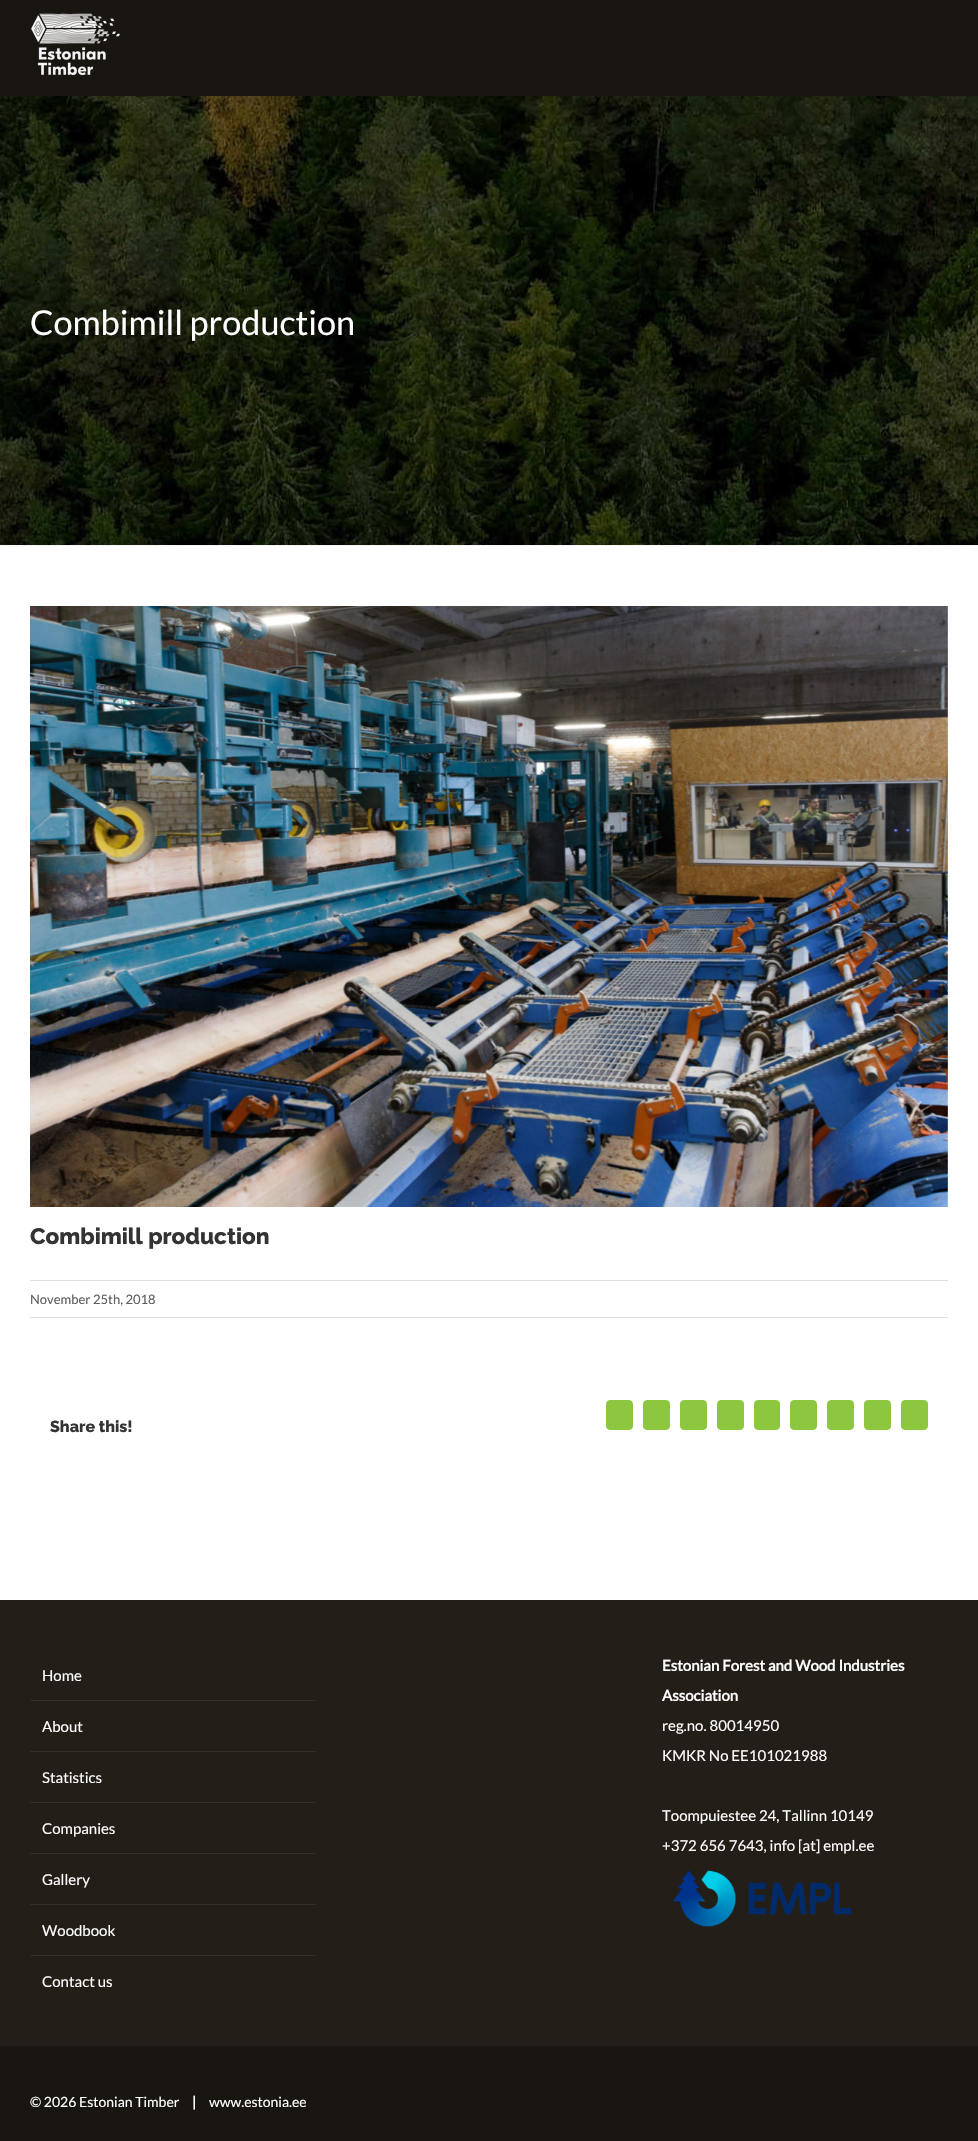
#include "include/core/SkBlurTypes.h"
#include "include/core/SkCanvas.h"
#include "include/core/SkData.h"
#include "include/core/SkFont.h"
#include "include/core/SkFontMgr.h"
#include "include/core/SkImage.h"
#include "include/core/SkMaskFilter.h"
#include "include/core/SkPaint.h"
#include "include/core/SkPathBuilder.h"
#include "include/core/SkTextBlob.h"
#include "include/effects/SkDashPathEffect.h"
#include "include/effects/SkGradientShader.h"
#include "include/utils/SkParsePath.h"

extern sk_sp<SkFontMgr> fontMgr;

void draw(SkCanvas* canvas) {
  SkPaint p;
  p.setAntiAlias(true);
  canvas->clear(SK_ColorWHITE);
  canvas->drawImageRect(SkImages::DeferredFromEncodedData(SkData::MakeFromFileName("images/2.png")), SkRect::MakeLTRB(0, 96, 978, 545), SkSamplingOptions());
  p.setColor(SkColorSetARGB(36, 0, 0, 0));
  p.setMaskFilter(SkMaskFilter::MakeBlur(kNormal_SkBlurStyle, 25));
  canvas->drawRect(SkRect::MakeLTRB(2, -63, 976, 104), p);
  p.setMaskFilter(nullptr);
  p.setColor(SkColorSetRGB(25, 22, 18));
  canvas->drawRect(SkRect::MakeLTRB(0, 0, 978, 96), p);
  canvas->drawImageRect(SkImages::DeferredFromEncodedData(SkData::MakeFromFileName("images/1.png")), SkRect::MakeLTRB(31, 13, 120, 76), SkSamplingOptions());
  p.setColor(SkColorSetRGB(245, 245, 245));
  canvas->drawRect(SkRect::MakeLTRB(0, 545, 978, 546), p);
  canvas->drawImageRect(SkImages::DeferredFromEncodedData(SkData::MakeFromFileName("images/3.png")), SkRect::MakeLTRB(30, 606, 948, 1207), SkSamplingOptions());
  p.setColor(SkColorSetRGB(224, 222, 222));
  canvas->drawRect(SkRect::MakeLTRB(30, 1280, 948, 1281), p);
  canvas->drawRect(SkRect::MakeLTRB(30, 1317, 948, 1318), p);
  p.setColor(SkColorSetRGB(141, 198, 63));
  canvas->drawRoundRect(SkRect::MakeLTRB(606.5f, 1400.5f, 632.5f, 1429.5f), 3.5f, 3.5f, p);
  p.setStyle(SkPaint::kStroke_Style);
  p.setStrokeWidth(1);
  canvas->drawRoundRect(SkRect::MakeLTRB(606.5f, 1400.5f, 632.5f, 1429.5f), 3.5f, 3.5f, p);
  p.setStyle(SkPaint::kFill_Style);
  canvas->drawRoundRect(SkRect::MakeLTRB(643.5f, 1400.5f, 669.5f, 1429.5f), 3.5f, 3.5f, p);
  p.setStyle(SkPaint::kStroke_Style);
  canvas->drawRoundRect(SkRect::MakeLTRB(643.5f, 1400.5f, 669.5f, 1429.5f), 3.5f, 3.5f, p);
  p.setStyle(SkPaint::kFill_Style);
  canvas->drawRoundRect(SkRect::MakeLTRB(680.5f, 1400.5f, 706.5f, 1429.5f), 3.5f, 3.5f, p);
  p.setStyle(SkPaint::kStroke_Style);
  canvas->drawRoundRect(SkRect::MakeLTRB(680.5f, 1400.5f, 706.5f, 1429.5f), 3.5f, 3.5f, p);
  p.setStyle(SkPaint::kFill_Style);
  canvas->drawRoundRect(SkRect::MakeLTRB(717.5f, 1400.5f, 743.5f, 1429.5f), 3.5f, 3.5f, p);
  p.setStyle(SkPaint::kStroke_Style);
  canvas->drawRoundRect(SkRect::MakeLTRB(717.5f, 1400.5f, 743.5f, 1429.5f), 3.5f, 3.5f, p);
  p.setStyle(SkPaint::kFill_Style);
  canvas->drawRoundRect(SkRect::MakeLTRB(754.5f, 1400.5f, 779.5f, 1429.5f), 3.5f, 3.5f, p);
  p.setStyle(SkPaint::kStroke_Style);
  canvas->drawRoundRect(SkRect::MakeLTRB(754.5f, 1400.5f, 779.5f, 1429.5f), 3.5f, 3.5f, p);
  p.setStyle(SkPaint::kFill_Style);
  canvas->drawRoundRect(SkRect::MakeLTRB(790.5f, 1400.5f, 816.5f, 1429.5f), 3.5f, 3.5f, p);
  p.setStyle(SkPaint::kStroke_Style);
  canvas->drawRoundRect(SkRect::MakeLTRB(790.5f, 1400.5f, 816.5f, 1429.5f), 3.5f, 3.5f, p);
  p.setStyle(SkPaint::kFill_Style);
  canvas->drawRoundRect(SkRect::MakeLTRB(827.5f, 1400.5f, 853.5f, 1429.5f), 3.5f, 3.5f, p);
  p.setStyle(SkPaint::kStroke_Style);
  canvas->drawRoundRect(SkRect::MakeLTRB(827.5f, 1400.5f, 853.5f, 1429.5f), 3.5f, 3.5f, p);
  p.setStyle(SkPaint::kFill_Style);
  canvas->drawRoundRect(SkRect::MakeLTRB(864.5f, 1400.5f, 890.5f, 1429.5f), 3.5f, 3.5f, p);
  p.setStyle(SkPaint::kStroke_Style);
  canvas->drawRoundRect(SkRect::MakeLTRB(864.5f, 1400.5f, 890.5f, 1429.5f), 3.5f, 3.5f, p);
  p.setStyle(SkPaint::kFill_Style);
  canvas->drawRoundRect(SkRect::MakeLTRB(901.5f, 1400.5f, 927.5f, 1429.5f), 3.5f, 3.5f, p);
  p.setStyle(SkPaint::kStroke_Style);
  canvas->drawRoundRect(SkRect::MakeLTRB(901.5f, 1400.5f, 927.5f, 1429.5f), 3.5f, 3.5f, p);
  p.setStyle(SkPaint::kFill_Style);
  p.setColor(SkColorSetRGB(35, 30, 24));
  canvas->drawRect(SkRect::MakeLTRB(0, 1600, 978, 2046), p);
  p.setColor(SkColorSetRGB(56, 47, 36));
  canvas->drawRect(SkRect::MakeLTRB(30, 1700, 316, 1701), p);
  canvas->drawRect(SkRect::MakeLTRB(30, 1751, 316, 1752), p);
  canvas->drawRect(SkRect::MakeLTRB(30, 1802, 316, 1803), p);
  canvas->drawRect(SkRect::MakeLTRB(30, 1853, 316, 1854), p);
  canvas->drawRect(SkRect::MakeLTRB(30, 1904, 316, 1905), p);
  canvas->drawRect(SkRect::MakeLTRB(30, 1955, 316, 1956), p);
  canvas->drawImageRect(SkImages::DeferredFromEncodedData(SkData::MakeFromFileName("images/4.png")), SkRect::MakeLTRB(672, 1870, 852, 1927), SkSamplingOptions());
  p.setColor(SkColorSetRGB(25, 22, 18));
  canvas->drawRect(SkRect::MakeLTRB(0, 2046, 978, 2141), p);
  SkFont font1(fontMgr->matchFamilyStyle("Lato", SkFontStyle::Normal()), 34.25f);
  font1.setSubpixel(true);
  p.setColor(SK_ColorWHITE);
  canvas->drawString("Combimill production", 30, 335, font1, p);
  SkFont font2(fontMgr->matchFamilyStyle("Raleway", SkFontStyle(100, SkFontStyle::kNormal_Width, SkFontStyle::kUpright_Slant)), 22.5f);
  font2.setSubpixel(true);
  p.setColor(SkColorSetRGB(51, 51, 51));
  canvas->drawString("Combimill production", 30, 1244, font2, p);
  SkFont font3(fontMgr->matchFamilyStyle("Lato", SkFontStyle::Normal()), 13);
  font3.setSubpixel(true);
  p.setColor(SkColorSetRGB(94, 94, 94));
  canvas->drawString("November 25th, 2018", 30, 1304, font3, p);
  SkFont font4(fontMgr->matchFamilyStyle("Raleway", SkFontStyle(100, SkFontStyle::kNormal_Width, SkFontStyle::kUpright_Slant)), 16);
  font4.setSubpixel(true);
  p.setColor(SkColorSetRGB(51, 51, 51));
  canvas->drawString("Share this!", 50, 1432, font4, p);
  SkFont font5(fontMgr->matchFamilyStyle("Lato", SkFontStyle::Normal()), 15);
  font5.setSubpixel(true);
  p.setColor(SK_ColorWHITE);
  canvas->drawString("Home", 42, 1681, font5, p);
  canvas->drawString("About", 42, 1732, font5, p);
  canvas->drawString("Statistics", 42, 1783, font5, p);
  canvas->drawString("Companies", 42, 1834, font5, p);
  canvas->drawString("Gallery", 42, 1885, font5, p);
  canvas->drawString("Woodbook", 42, 1936, font5, p);
  canvas->drawString("Contact us", 42, 1987, font5, p);
  SkFont font6(fontMgr->matchFamilyStyle("Lato", SkFontStyle::Bold()), 15);
  font6.setSubpixel(true);
  canvas->drawString("Estonian Forest and Wood Industries", 662, 1671, font6, p);
  canvas->drawString("Association", 662, 1701, font6, p);
  canvas->drawString("reg.no. 80014950", 662, 1731, font5, p);
  canvas->drawString("KMKR No EE101021988", 662, 1761, font5, p);
  canvas->drawString("Toompuiestee 24, Tallinn 10149", 662, 1821, font5, p);
  canvas->drawString("+372 656 7643, info [at] empl.ee", 662, 1851, font5, p);
  SkFont font7(fontMgr->matchFamilyStyle("Lato", SkFontStyle::Normal()), 14);
  font7.setSubpixel(true);
  canvas->drawString("© 2026 Estonian Timber", 30, 2107, font7, p);
  SkFont font8(fontMgr->matchFamilyStyle("Lato", SkFontStyle::Bold()), 14);
  font8.setSubpixel(true);
  canvas->drawString("|", 192, 2107, font8, p);
  canvas->drawString("www.estonia.ee", 209, 2107, font7, p);
}
